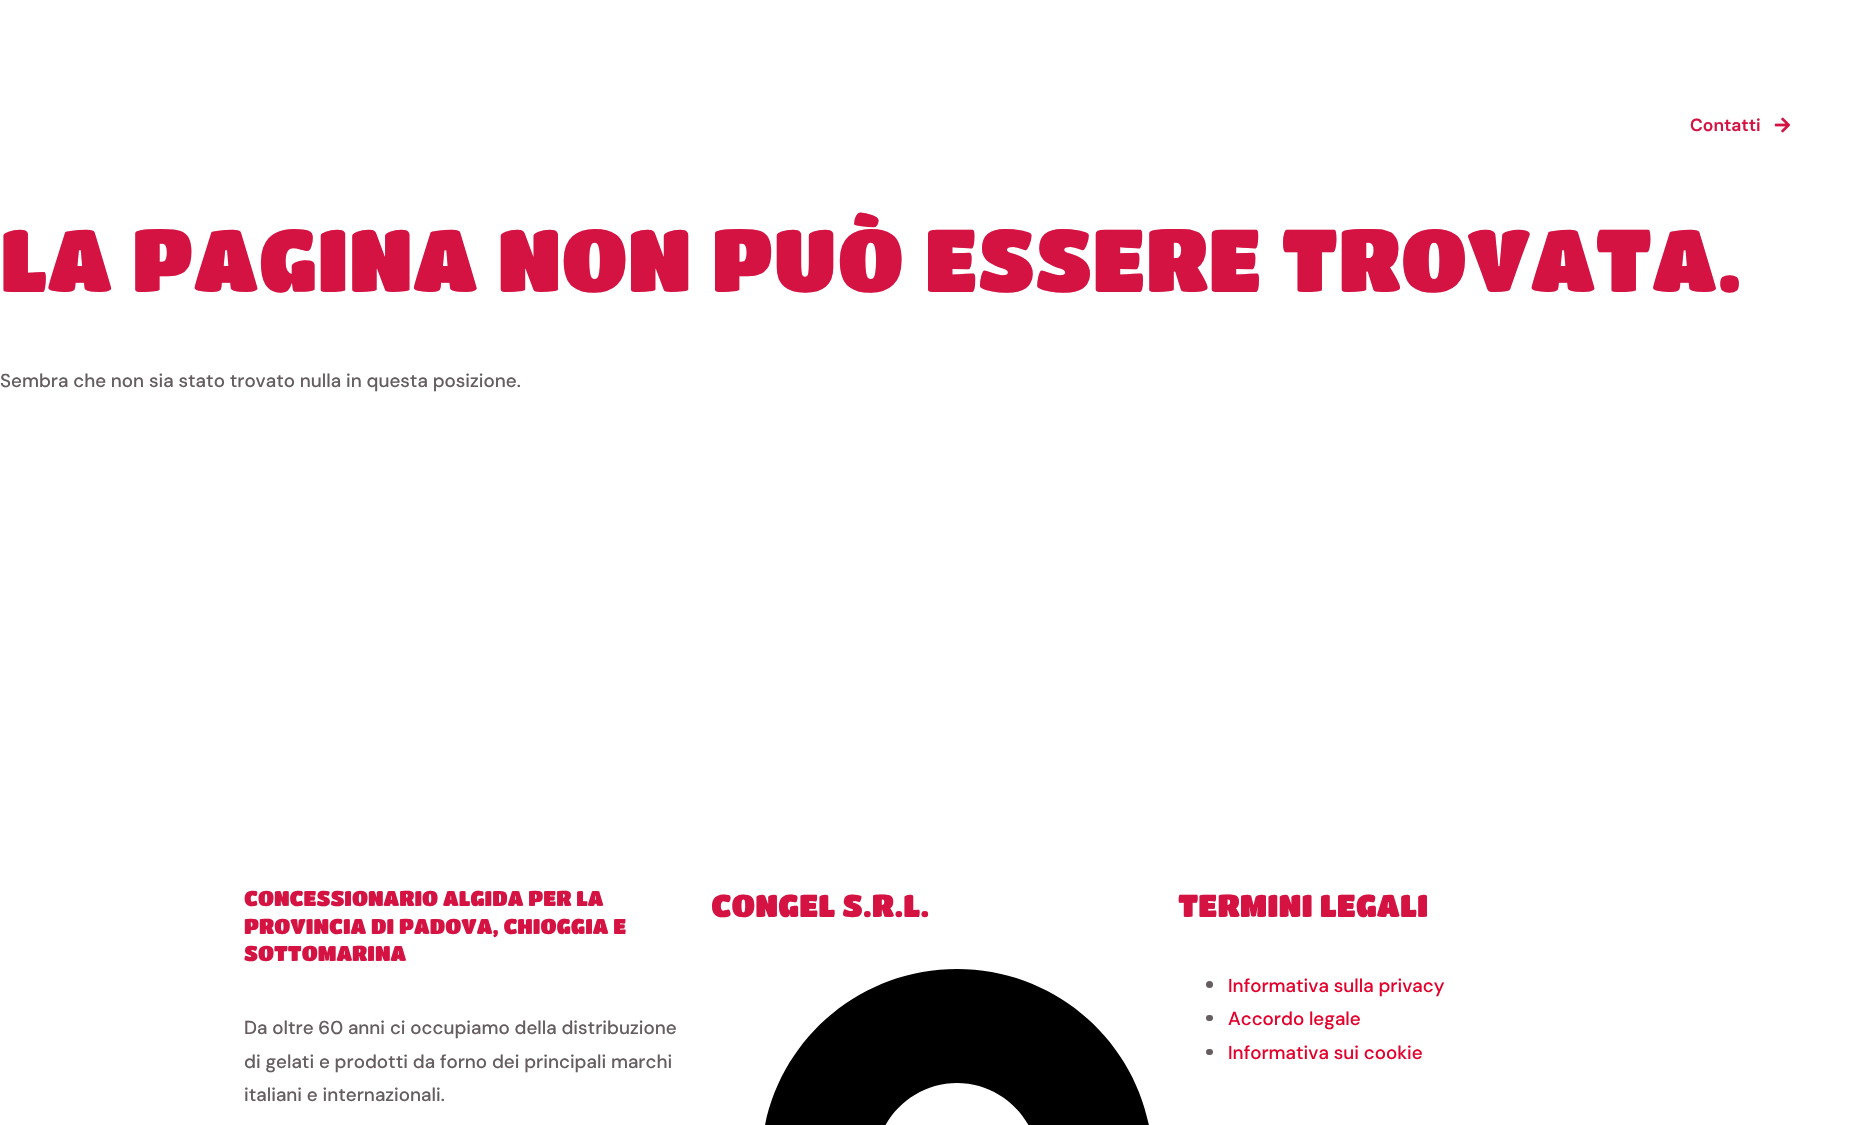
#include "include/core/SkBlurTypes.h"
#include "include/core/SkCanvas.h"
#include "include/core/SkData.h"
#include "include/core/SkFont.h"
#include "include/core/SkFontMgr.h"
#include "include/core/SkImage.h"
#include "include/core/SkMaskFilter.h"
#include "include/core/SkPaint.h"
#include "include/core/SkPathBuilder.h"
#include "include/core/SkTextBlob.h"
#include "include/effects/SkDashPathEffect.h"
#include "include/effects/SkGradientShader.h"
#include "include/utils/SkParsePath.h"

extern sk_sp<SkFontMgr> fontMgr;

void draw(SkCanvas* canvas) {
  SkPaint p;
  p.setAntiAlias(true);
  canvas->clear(SK_ColorWHITE);
  canvas->drawImageRect(SkImages::DeferredFromEncodedData(SkData::MakeFromFileName("images/1.png")), SkRect::MakeLTRB(1774, 117, 1791, 133), SkSamplingOptions());
  p.setColor(SK_ColorBLACK);
  canvas->drawPath(SkPathBuilder().moveTo(937, 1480).cubicTo(789, 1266, 761, 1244, 761, 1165).cubicTo(761, 1056, 849, 969, 957, 969).cubicTo(1065, 969, 1153, 1056, 1153, 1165).cubicTo(1153, 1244, 1125, 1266, 977, 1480).cubicTo(967, 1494, 947, 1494, 937, 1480).close().moveTo(957, 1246).cubicTo(1002, 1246, 1039, 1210, 1039, 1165).cubicTo(1039, 1120, 1002, 1083, 957, 1083).cubicTo(912, 1083, 875, 1120, 875, 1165).cubicTo(875, 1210, 912, 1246, 957, 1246).close().detach(), p);
  p.setColor(SkColorSetRGB(101, 93, 95));
  canvas->drawCircle(1209.5f, 984.5f, 3.5f, p);
  canvas->drawRoundRect(SkRect::MakeLTRB(1206, 1015, 1213, 1021), 3, 3, p);
  canvas->drawRoundRect(SkRect::MakeLTRB(1206, 1049, 1213, 1055), 3, 3, p);
  SkFont font1(fontMgr->matchFamilyStyle("DM Sans", SkFontStyle(600, SkFontStyle::kNormal_Width, SkFontStyle::kUpright_Slant)), 17.5f);
  font1.setSubpixel(true);
  p.setColor(SkColorSetRGB(212, 19, 67));
  canvas->drawString("Contatti", 1690, 131, font1, p);
  SkFont font2(fontMgr->matchFamilyStyle("Titan One", SkFontStyle::Normal()), 87.5f);
  font2.setSubpixel(true);
  canvas->drawString("LA PAGINA NON PUÒ ESSERE TROVATA.", 0, 292, font2, p);
  SkFont font3(fontMgr->matchFamilyStyle("DM Sans", SkFontStyle(500, SkFontStyle::kNormal_Width, SkFontStyle::kUpright_Slant)), 18.75f);
  font3.setSubpixel(true);
  p.setColor(SkColorSetRGB(101, 93, 95));
  canvas->drawString("Sembra che non sia stato trovato nulla in questa posizione.", 0, 387, font3, p);
  SkFont font4(fontMgr->matchFamilyStyle("Titan One", SkFontStyle::Normal()), 21.25f);
  font4.setSubpixel(true);
  p.setColor(SkColorSetRGB(212, 19, 67));
  canvas->drawString("CONCESSIONARIO ALGIDA PER LA", 244, 906, font4, p);
  canvas->drawString("PROVINCIA DI PADOVA, CHIOGGIA E", 244, 934, font4, p);
  canvas->drawString("SOTTOMARINA", 244, 961, font4, p);
  p.setColor(SkColorSetRGB(101, 93, 95));
  canvas->drawString("Da oltre 60 anni ci occupiamo della distribuzione", 244, 1034, font3, p);
  canvas->drawString("di gelati e prodotti da forno dei principali marchi", 244, 1068, font3, p);
  canvas->drawString("italiani e internazionali.", 244, 1101, font3, p);
  SkFont font5(fontMgr->matchFamilyStyle("Titan One", SkFontStyle::Normal()), 31.25f);
  font5.setSubpixel(true);
  p.setColor(SkColorSetRGB(212, 19, 67));
  canvas->drawString("CONGEL S.R.L.", 711, 917, font5, p);
  canvas->drawString("TERMINI LEGALI", 1178, 917, font5, p);
  p.setColor(SkColorSetRGB(228, 2, 45));
  canvas->drawString("Informativa sulla privacy", 1228, 992, font3, p);
  canvas->drawString("Accordo legale", 1228, 1025, font3, p);
  canvas->drawString("Informativa sui cookie", 1228, 1059, font3, p);
}
